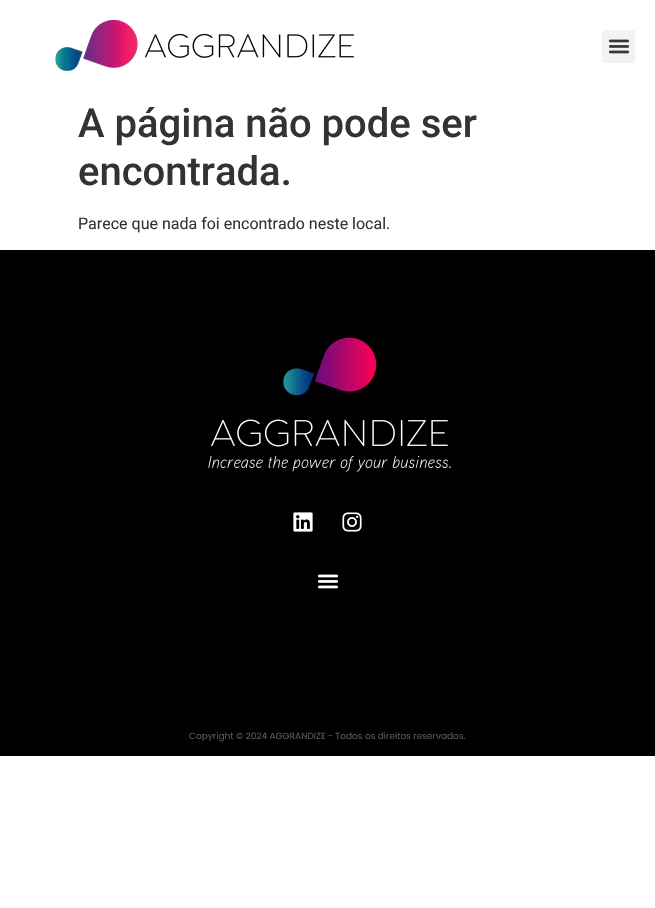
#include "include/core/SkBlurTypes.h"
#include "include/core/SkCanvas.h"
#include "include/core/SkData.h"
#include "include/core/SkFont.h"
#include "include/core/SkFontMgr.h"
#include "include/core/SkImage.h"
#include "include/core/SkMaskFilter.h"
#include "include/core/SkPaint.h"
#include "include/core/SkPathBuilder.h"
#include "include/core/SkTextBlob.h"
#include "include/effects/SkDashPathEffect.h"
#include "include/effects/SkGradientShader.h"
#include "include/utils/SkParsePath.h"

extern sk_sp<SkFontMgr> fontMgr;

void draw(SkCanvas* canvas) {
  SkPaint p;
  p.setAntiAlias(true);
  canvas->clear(SK_ColorWHITE);
  canvas->drawImageRect(SkImages::DeferredFromEncodedData(SkData::MakeFromFileName("images/1.png")), SkRect::MakeLTRB(55, 20, 354, 71), SkSamplingOptions());
  p.setColor(SkColorSetRGB(242, 242, 242));
  canvas->drawRoundRect(SkRect::MakeLTRB(602, 30, 635, 63), 3, 3, p);
  canvas->drawImageRect(SkImages::DeferredFromEncodedData(SkData::MakeFromFileName("images/2.png")), SkRect::MakeLTRB(608, 39, 630, 54), SkSamplingOptions());
  p.setColor(SK_ColorBLACK);
  canvas->drawRect(SkRect::MakeLTRB(0, 250, 655, 756), p);
  canvas->drawImageRect(SkImages::DeferredFromEncodedData(SkData::MakeFromFileName("images/3.png")), SkRect::MakeLTRB(208, 337, 451, 472), SkSamplingOptions());
  canvas->drawImageRect(SkImages::DeferredFromEncodedData(SkData::MakeFromFileName("images/4.png")), SkRect::MakeLTRB(293, 512, 313, 532), SkSamplingOptions());
  canvas->drawImageRect(SkImages::DeferredFromEncodedData(SkData::MakeFromFileName("images/5.png")), SkRect::MakeLTRB(342, 512, 362, 532), SkSamplingOptions());
  canvas->drawImageRect(SkImages::DeferredFromEncodedData(SkData::MakeFromFileName("images/6.png")), SkRect::MakeLTRB(317, 574, 339, 589), SkSamplingOptions());
  SkFont font1(fontMgr->matchFamilyStyle("Roboto", SkFontStyle(500, SkFontStyle::kNormal_Width, SkFontStyle::kUpright_Slant)), 40);
  font1.setSubpixel(true);
  p.setColor(SkColorSetRGB(51, 51, 51));
  canvas->drawString("A página não pode ser", 78, 137, font1, p);
  canvas->drawString("encontrada.", 78, 185, font1, p);
  SkFont font2(fontMgr->matchFamilyStyle("Roboto", SkFontStyle::Normal()), 16);
  font2.setSubpixel(true);
  canvas->drawString("Parece que nada foi encontrado neste local.", 78, 229, font2, p);
  SkFont font3(fontMgr->matchFamilyStyle("Poppins", SkFontStyle::Normal()), 9);
  font3.setSubpixel(true);
  p.setColor(SkColorSetRGB(89, 89, 89));
  canvas->drawString("Copyright © 2024 AGGRANDIZE - Todos os direitos reservados.", 189, 739, font3, p);
}
